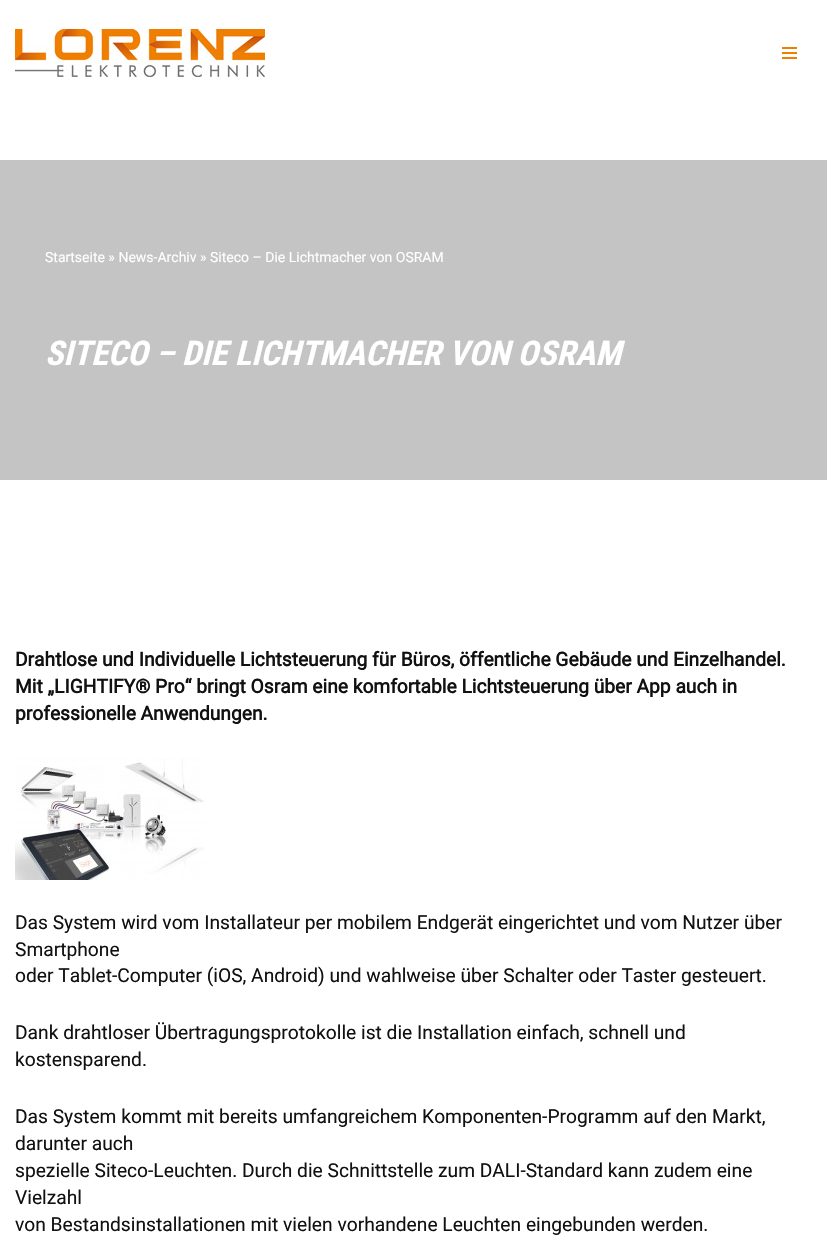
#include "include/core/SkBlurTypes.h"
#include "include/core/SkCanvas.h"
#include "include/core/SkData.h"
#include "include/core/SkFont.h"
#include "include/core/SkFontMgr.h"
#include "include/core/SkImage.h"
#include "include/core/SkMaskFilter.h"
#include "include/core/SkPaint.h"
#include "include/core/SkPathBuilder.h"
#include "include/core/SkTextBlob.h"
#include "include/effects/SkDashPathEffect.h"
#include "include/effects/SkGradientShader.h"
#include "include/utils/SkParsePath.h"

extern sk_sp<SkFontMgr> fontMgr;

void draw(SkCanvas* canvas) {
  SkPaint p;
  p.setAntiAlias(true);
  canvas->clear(SK_ColorWHITE);
  canvas->drawImageRect(SkImages::DeferredFromEncodedData(SkData::MakeFromFileName("images/1.png")), SkRect::MakeLTRB(15, 29, 265, 77), SkSamplingOptions());
  p.setColor(SkColorSetRGB(238, 127, 1));
  canvas->drawRect(SkRect::MakeLTRB(782, 47, 797, 49), p);
  canvas->drawRect(SkRect::MakeLTRB(782, 52, 797, 54), p);
  canvas->drawRect(SkRect::MakeLTRB(782, 57, 797, 59), p);
  p.setColor(SkColorSetRGB(196, 196, 196));
  canvas->drawRect(SkRect::MakeLTRB(0, 160, 827, 480), p);
  canvas->drawImageRect(SkImages::DeferredFromEncodedData(SkData::MakeFromFileName("images/2.png")), SkRect::MakeLTRB(15, 758, 205, 880), SkSamplingOptions());
  SkFont font1(fontMgr->matchFamilyStyle("Roboto", SkFontStyle::Normal()), 14);
  font1.setSubpixel(true);
  p.setColor(SK_ColorWHITE);
  canvas->drawString("Startseite » News-Archiv » Siteco – Die Lichtmacher von OSRAM", 45, 262, font1, p);
  SkFont font2(fontMgr->matchFamilyStyle("Roboto Condensed", SkFontStyle::BoldItalic()), 34);
  font2.setSubpixel(true);
  canvas->drawString("SITECO – DIE LICHTMACHER VON OSRAM", 45, 365, font2, p);
  SkFont font3(fontMgr->matchFamilyStyle("Roboto", SkFontStyle::Bold()), 19.2f);
  font3.setSubpixel(true);
  p.setColor(SkColorSetRGB(17, 17, 17));
  canvas->drawString("Drahtlose und Individuelle Lichtsteuerung für Büros, öffentliche Gebäude und Einzelhandel.", 15, 666, font3, p);
  canvas->drawString("Mit „LIGHTIFY® Pro“ bringt Osram eine komfortable Lichtsteuerung über App auch in", 15, 693, font3, p);
  canvas->drawString("professionelle Anwendungen.", 15, 720, font3, p);
  SkFont font4(fontMgr->matchFamilyStyle("Roboto", SkFontStyle::Normal()), 19.2f);
  font4.setSubpixel(true);
  canvas->drawString("Das System wird vom Installateur per mobilem Endgerät eingerichtet und vom Nutzer über", 15, 929, font4, p);
  canvas->drawString("Smartphone", 15, 956, font4, p);
  canvas->drawString("oder Tablet-Computer (iOS, Android) und wahlweise über Schalter oder Taster gesteuert.", 15, 982, font4, p);
  canvas->drawString("Dank drahtloser Übertragungsprotokolle ist die Installation einfach, schnell und", 15, 1039, font4, p);
  canvas->drawString("kostensparend.", 15, 1066, font4, p);
  canvas->drawString("Das System kommt mit bereits umfangreichem Komponenten-Programm auf den Markt,", 15, 1123, font4, p);
  canvas->drawString("darunter auch", 15, 1150, font4, p);
  canvas->drawString("spezielle Siteco-Leuchten. Durch die Schnittstelle zum DALI-Standard kann zudem eine", 15, 1177, font4, p);
  canvas->drawString("Vielzahl", 15, 1204, font4, p);
  canvas->drawString("von Bestandsinstallationen mit vielen vorhandene Leuchten eingebunden werden.", 15, 1231, font4, p);
}
